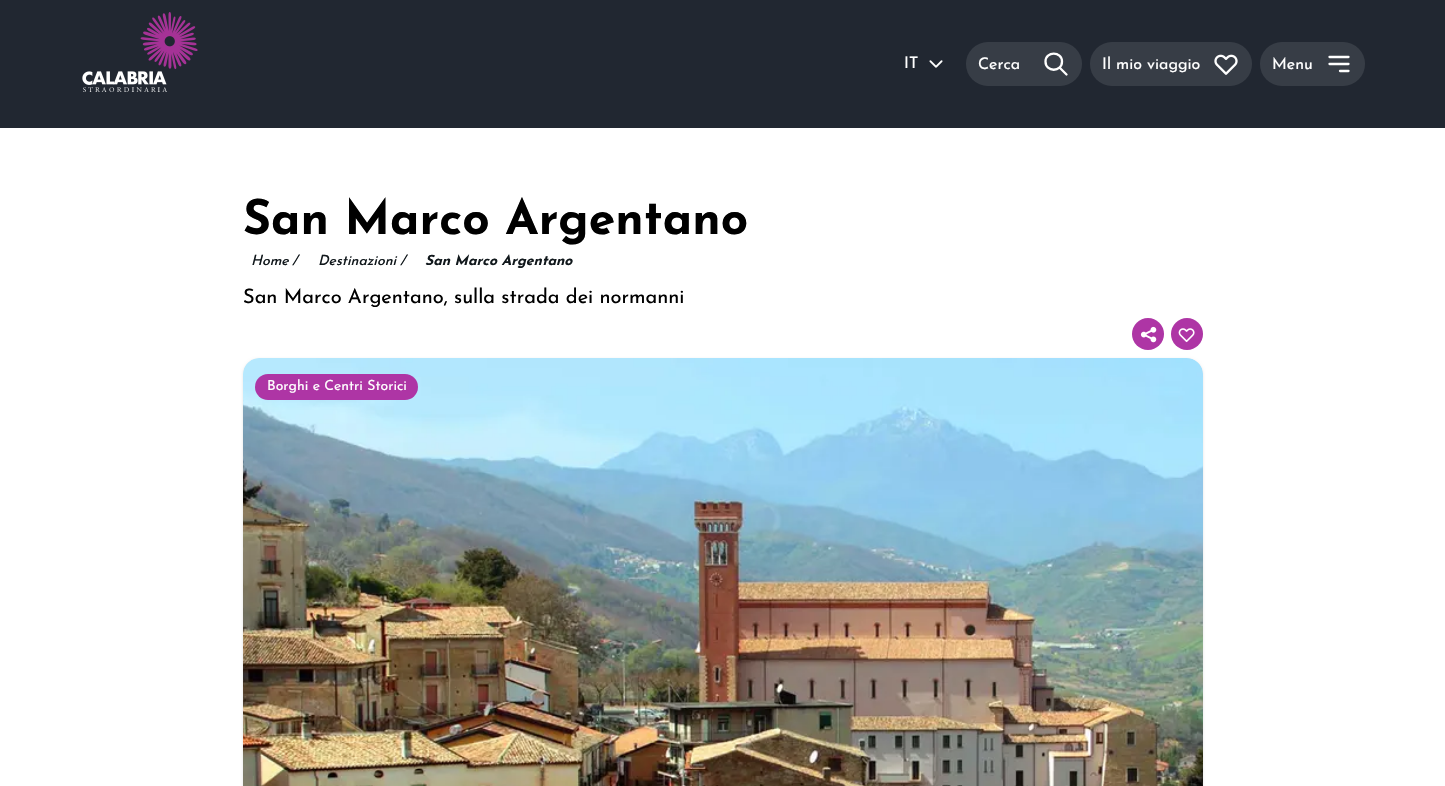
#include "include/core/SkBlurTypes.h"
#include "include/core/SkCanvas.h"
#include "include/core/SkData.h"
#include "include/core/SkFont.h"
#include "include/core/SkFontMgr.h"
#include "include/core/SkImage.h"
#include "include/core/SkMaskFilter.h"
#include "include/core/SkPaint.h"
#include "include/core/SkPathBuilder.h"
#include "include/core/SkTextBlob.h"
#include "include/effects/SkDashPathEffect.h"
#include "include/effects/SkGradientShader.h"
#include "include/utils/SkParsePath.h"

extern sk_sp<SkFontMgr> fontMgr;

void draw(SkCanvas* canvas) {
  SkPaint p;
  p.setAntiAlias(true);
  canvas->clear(SkColorSetRGB(33, 39, 49));
  canvas->drawImageRect(SkImages::DeferredFromEncodedData(SkData::MakeFromFileName("images/1.png")), SkRect::MakeLTRB(82, 12, 198, 92), SkSamplingOptions());
  canvas->drawImageRect(SkImages::DeferredFromEncodedData(SkData::MakeFromFileName("images/2.png")), SkRect::MakeLTRB(929, 60, 943, 68), SkSamplingOptions());
  p.setColor(SkColorSetRGB(55, 61, 70));
  canvas->drawRoundRect(SkRect::MakeLTRB(966, 42, 1082, 86), 22, 22, p);
  p.setStyle(SkPaint::kStroke_Style);
  p.setStrokeWidth(2.3f);
  p.setStrokeCap(SkPaint::kRound_Cap);
  p.setStrokeJoin(SkPaint::kRound_Join);
  p.setColor(SK_ColorWHITE);
  canvas->drawPath(SkPathBuilder().moveTo(1066.5f, 74.5f).lineTo(1059.5f, 67.5f).moveTo(1062, 61.5f).cubicTo(1062, 72.5f, 1045.5f, 72.5f, 1045.5f, 61.5f).cubicTo(1045.5f, 51, 1062, 51, 1062, 61.5f).close().detach(), p);
  p.setStyle(SkPaint::kFill_Style);
  p.setColor(SkColorSetRGB(55, 61, 70));
  canvas->drawRoundRect(SkRect::MakeLTRB(1090, 42, 1252, 86), 22, 22, p);
  canvas->drawImageRect(SkImages::DeferredFromEncodedData(SkData::MakeFromFileName("images/3.png")), SkRect::MakeLTRB(1214, 54, 1238, 75), SkSamplingOptions());
  canvas->drawRoundRect(SkRect::MakeLTRB(1260, 42, 1365, 86), 22, 22, p);
  p.setStyle(SkPaint::kStroke_Style);
  p.setColor(SK_ColorWHITE);
  canvas->drawPath(SkPathBuilder().moveTo(1329.5f, 57).lineTo(1348.5f, 57).moveTo(1329.5f, 64).lineTo(1348.5f, 64).moveTo(1340, 71).lineTo(1348.5f, 71).detach(), p);
  p.setStyle(SkPaint::kFill_Style);
  canvas->drawRect(SkRect::MakeLTRB(0, 128, 1445, 786), p);
  p.setColor(SkColorSetRGB(174, 53, 165));
  canvas->drawCircle(1148, 334, 16, p);
  canvas->drawImageRect(SkImages::DeferredFromEncodedData(SkData::MakeFromFileName("images/4.png")), SkRect::MakeLTRB(1140, 326, 1157, 343), SkSamplingOptions());
  canvas->drawCircle(1187, 334, 16, p);
  canvas->drawImageRect(SkImages::DeferredFromEncodedData(SkData::MakeFromFileName("images/5.png")), SkRect::MakeLTRB(1178, 328, 1195, 343), SkSamplingOptions());
  p.setColor(SkColorSetARGB(26, 0, 0, 0));
  p.setMaskFilter(SkMaskFilter::MakeBlur(kNormal_SkBlurStyle, 1.5f));
  canvas->drawRoundRect(SkRect::MakeLTRB(243, 359, 1203, 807), 16, 16, p);
  p.setMaskFilter(nullptr);
  canvas->drawImageRect(SkImages::DeferredFromEncodedData(SkData::MakeFromFileName("images/6.png")), SkRect::MakeLTRB(243, 358, 1203, 786), SkSamplingOptions());
  p.setColor(SkColorSetRGB(174, 53, 165));
  canvas->drawRoundRect(SkRect::MakeLTRB(255, 374, 418, 400), 13, 13, p);
  SkFont font1(fontMgr->matchFamilyStyle("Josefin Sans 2", SkFontStyle(100, SkFontStyle::kNormal_Width, SkFontStyle::kUpright_Slant)), 16);
  font1.setSubpixel(true);
  p.setColor(SK_ColorWHITE);
  canvas->drawString("IT", 904, 68, font1, p);
  canvas->drawString("Cerca", 978, 69, font1, p);
  canvas->drawString("Il mio viaggio", 1102, 69, font1, p);
  canvas->drawString("Menu", 1272, 69, font1, p);
  SkFont font2(fontMgr->matchFamilyStyle("Josefin Sans", SkFontStyle(100, SkFontStyle::kNormal_Width, SkFontStyle::kUpright_Slant)), 48);
  font2.setSubpixel(true);
  p.setColor(SK_ColorBLACK);
  canvas->drawString("San Marco Argentano", 243, 234, font2, p);
  SkFont font3(fontMgr->matchFamilyStyle("Josefin Sans", SkFontStyle(100, SkFontStyle::kNormal_Width, SkFontStyle::kItalic_Slant)), 14);
  font3.setSubpixel(true);
  p.setColor(SkColorSetRGB(17, 24, 28));
  canvas->drawString("Home", 251, 265, font3, p);
  canvas->drawString("/", 292, 265, font3, p);
  canvas->drawString("Destinazioni", 318, 265, font3, p);
  canvas->drawString("/", 400, 265, font3, p);
  SkFont font4(fontMgr->matchFamilyStyle("Josefin Sans 2", SkFontStyle(100, SkFontStyle::kNormal_Width, SkFontStyle::kItalic_Slant)), 14);
  font4.setSubpixel(true);
  canvas->drawString("San Marco Argentano", 425, 265, font4, p);
  SkFont font5(fontMgr->matchFamilyStyle("Josefin Sans 2", SkFontStyle(100, SkFontStyle::kNormal_Width, SkFontStyle::kUpright_Slant)), 20);
  font5.setSubpixel(true);
  p.setColor(SK_ColorBLACK);
  canvas->drawString("San Marco Argentano, sulla strada dei normanni", 243, 303, font5, p);
  SkFont font6(fontMgr->matchFamilyStyle("Josefin Sans 2", SkFontStyle(100, SkFontStyle::kNormal_Width, SkFontStyle::kUpright_Slant)), 14);
  font6.setSubpixel(true);
  p.setColor(SK_ColorWHITE);
  canvas->drawString("Borghi e Centri Storici", 267, 390, font6, p);
}
